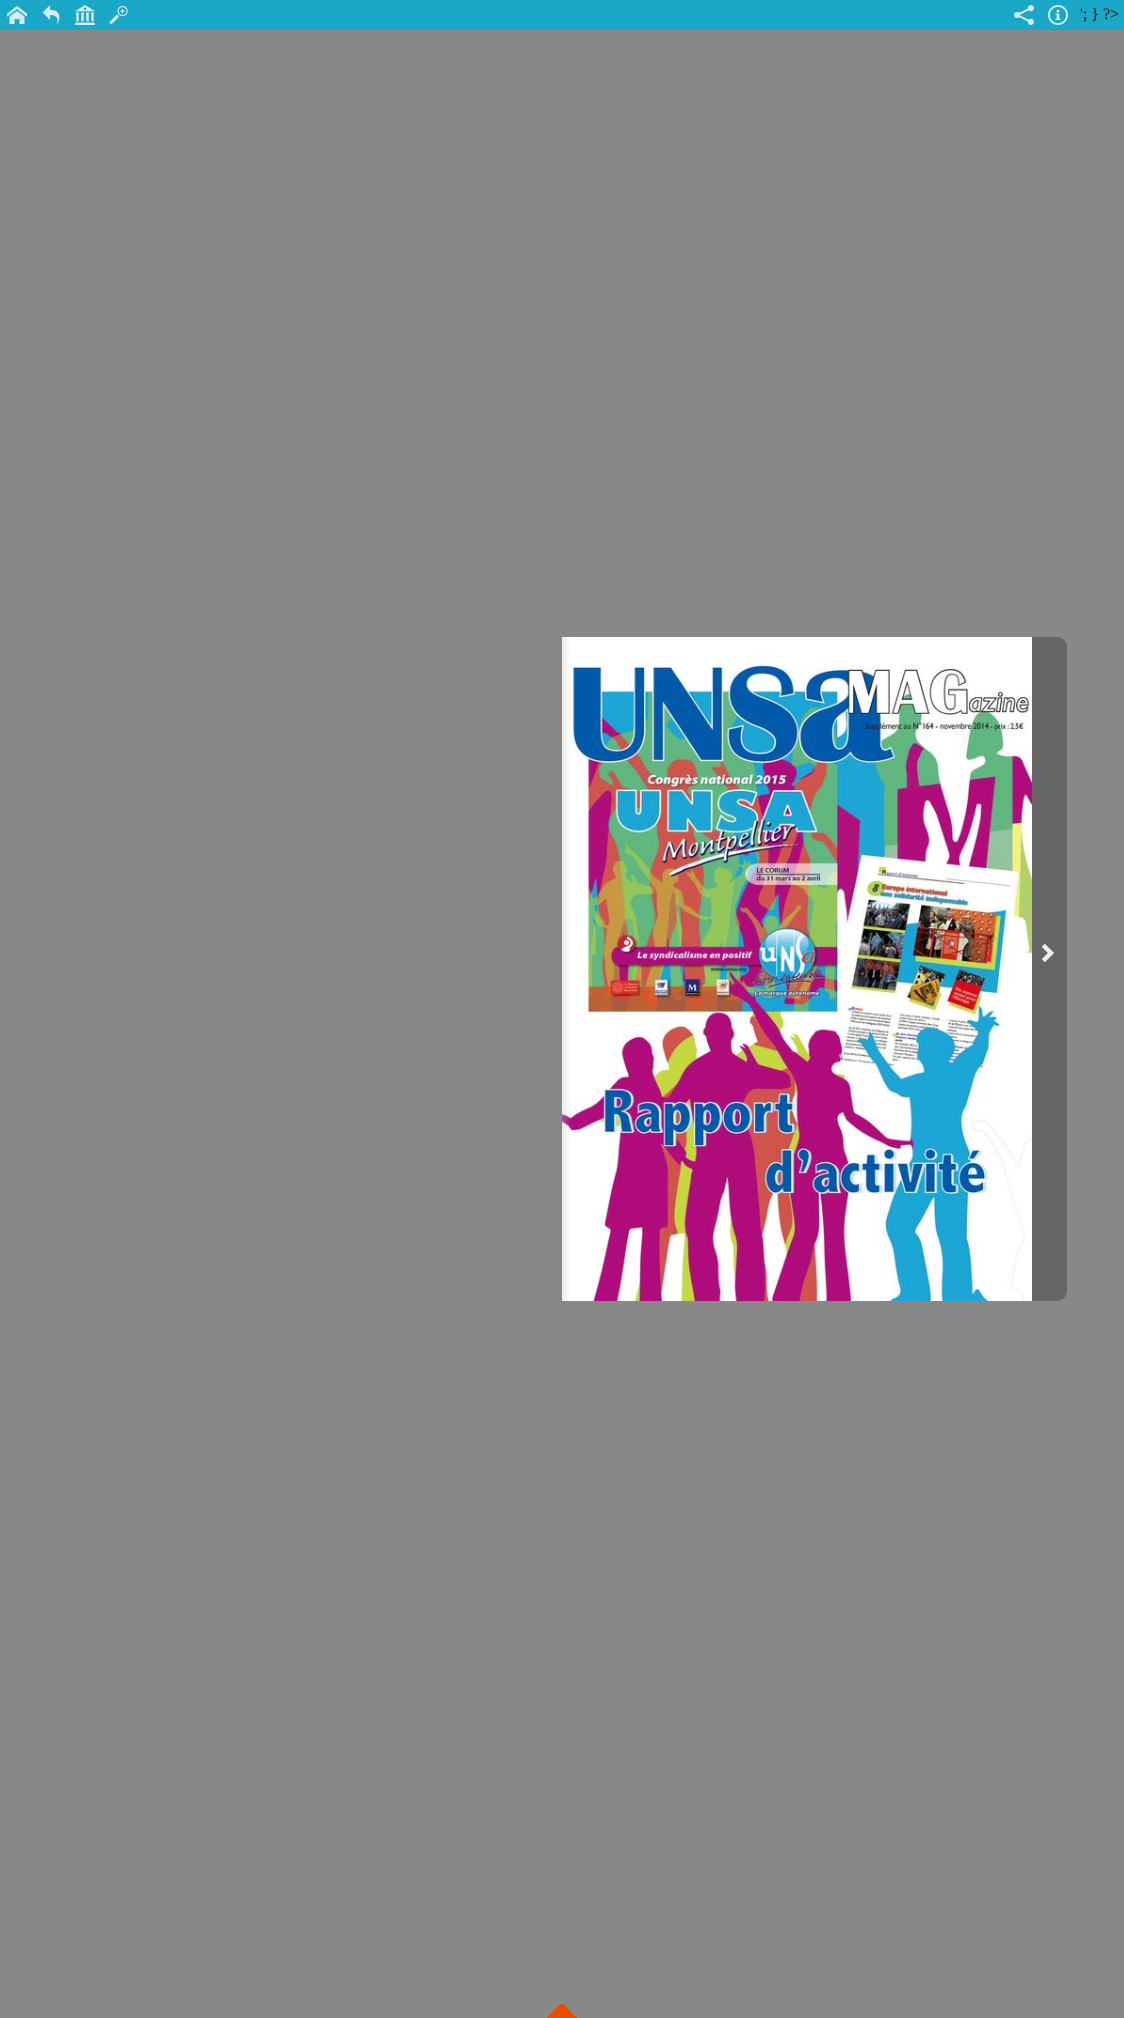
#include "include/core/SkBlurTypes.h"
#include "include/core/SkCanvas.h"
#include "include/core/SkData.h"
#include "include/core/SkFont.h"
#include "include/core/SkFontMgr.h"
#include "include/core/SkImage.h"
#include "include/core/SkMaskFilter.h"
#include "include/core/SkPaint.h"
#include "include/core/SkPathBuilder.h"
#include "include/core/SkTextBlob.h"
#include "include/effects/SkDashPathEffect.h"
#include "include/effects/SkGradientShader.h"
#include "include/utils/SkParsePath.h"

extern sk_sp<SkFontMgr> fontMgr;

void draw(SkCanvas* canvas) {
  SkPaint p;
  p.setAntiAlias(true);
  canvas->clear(SkColorSetRGB(136, 136, 136));
  p.setColor(SkColorSetRGB(27, 167, 199));
  canvas->drawRect(SkRect::MakeLTRB(0, 0, 1124, 30), p);
  canvas->drawImageRect(SkImages::DeferredFromEncodedData(SkData::MakeFromFileName("images/1.png")), SkRect::MakeLTRB(7, 6, 27, 25), SkSamplingOptions());
  canvas->drawImageRect(SkImages::DeferredFromEncodedData(SkData::MakeFromFileName("images/2.png")), SkRect::MakeLTRB(42, 5, 60, 25), SkSamplingOptions());
  canvas->drawImageRect(SkImages::DeferredFromEncodedData(SkData::MakeFromFileName("images/3.png")), SkRect::MakeLTRB(75, 5, 95, 25), SkSamplingOptions());
  canvas->drawImageRect(SkImages::DeferredFromEncodedData(SkData::MakeFromFileName("images/4.png")), SkRect::MakeLTRB(109, 5, 128, 24), SkSamplingOptions());
  canvas->drawImageRect(SkImages::DeferredFromEncodedData(SkData::MakeFromFileName("images/5.png")), SkRect::MakeLTRB(1014, 5, 1034, 25), SkSamplingOptions());
  canvas->drawImageRect(SkImages::DeferredFromEncodedData(SkData::MakeFromFileName("images/6.png")), SkRect::MakeLTRB(1048, 5, 1068, 25), SkSamplingOptions());
  p.setColor(SK_ColorWHITE);
  canvas->drawRect(SkRect::MakeLTRB(562, 637, 1032, 652), p);
  canvas->drawImageRect(SkImages::DeferredFromEncodedData(SkData::MakeFromFileName("images/7.png")), SkRect::MakeLTRB(562, 652, 1032, 1301), SkSamplingOptions());
  canvas->drawImageRect(SkImages::DeferredFromEncodedData(SkData::MakeFromFileName("images/8.png")), SkRect::MakeLTRB(562, 637, 571, 1301), SkSamplingOptions());
  p.setColor(SkColorSetRGB(102, 102, 102));
  canvas->drawPath(SkPathBuilder().moveTo(1032, 637).lineTo(1057, 637).cubicTo(1062.5f, 637, 1067, 641.5f, 1067, 647).lineTo(1067, 1291).cubicTo(1067, 1296.5f, 1062.5f, 1301, 1057, 1301).lineTo(1032, 1301).close().detach(), p);
  canvas->drawImageRect(SkImages::DeferredFromEncodedData(SkData::MakeFromFileName("images/9.png")), SkRect::MakeLTRB(1042, 944, 1054, 962), SkSamplingOptions());
  canvas->drawImageRect(SkImages::DeferredFromEncodedData(SkData::MakeFromFileName("images/10.png")), SkRect::MakeLTRB(547, 2004, 577, 2018), SkSamplingOptions());
  SkFont font1(fontMgr->matchFamilyStyle("Liberation Serif", SkFontStyle::Normal()), 16);
  font1.setSubpixel(true);
  p.setColor(SkColorSetRGB(27, 27, 27));
  canvas->drawString("'; } ?>", 1080, 19, font1, p);
}
